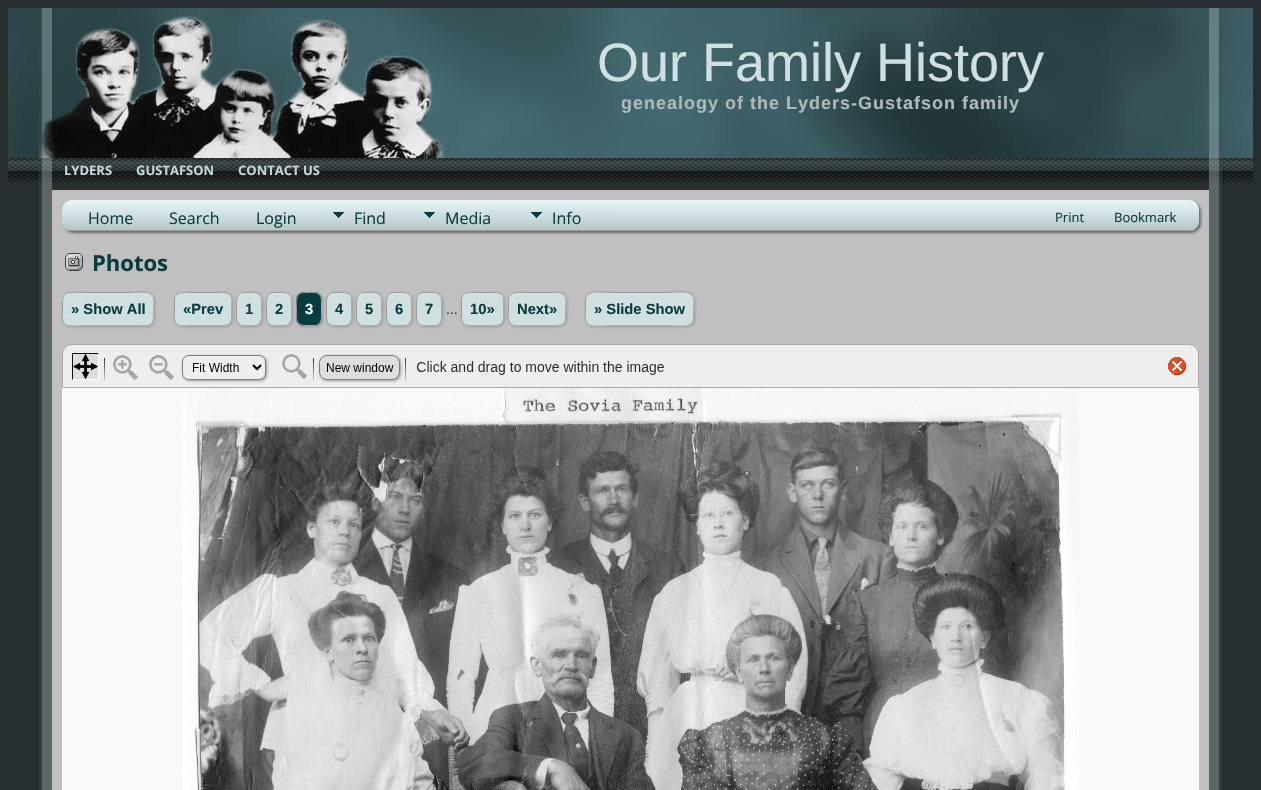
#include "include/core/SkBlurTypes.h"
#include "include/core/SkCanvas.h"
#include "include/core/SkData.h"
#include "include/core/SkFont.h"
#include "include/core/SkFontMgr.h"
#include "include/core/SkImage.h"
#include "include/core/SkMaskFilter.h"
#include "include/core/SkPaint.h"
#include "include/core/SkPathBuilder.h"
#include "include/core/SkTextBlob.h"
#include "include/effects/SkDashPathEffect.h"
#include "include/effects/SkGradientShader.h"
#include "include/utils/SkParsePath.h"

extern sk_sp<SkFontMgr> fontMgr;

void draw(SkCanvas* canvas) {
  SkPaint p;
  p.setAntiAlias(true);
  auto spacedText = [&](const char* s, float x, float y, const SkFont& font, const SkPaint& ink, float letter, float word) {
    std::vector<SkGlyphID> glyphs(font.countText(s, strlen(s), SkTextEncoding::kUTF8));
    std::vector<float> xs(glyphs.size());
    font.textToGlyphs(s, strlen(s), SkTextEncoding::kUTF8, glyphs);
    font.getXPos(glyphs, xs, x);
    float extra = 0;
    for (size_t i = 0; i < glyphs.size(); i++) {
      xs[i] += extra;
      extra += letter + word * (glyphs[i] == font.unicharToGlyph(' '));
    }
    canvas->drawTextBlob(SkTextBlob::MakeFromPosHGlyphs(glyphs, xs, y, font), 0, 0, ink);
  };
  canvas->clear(SkColorSetRGB(39, 46, 48));
  canvas->drawImageRect(SkImages::DeferredFromEncodedData(SkData::MakeFromFileName("images/1.png")), SkRect::MakeLTRB(8, 8, 1253, 158), SkSamplingOptions());
  canvas->drawImageRect(SkImages::DeferredFromEncodedData(SkData::MakeFromFileName("images/2.png")), SkRect::MakeLTRB(39, 8, 52, 25), SkSamplingOptions());
  p.setColor(SkColorSetARGB(102, 170, 185, 185));
  canvas->drawRect(SkRect::MakeLTRB(1209, 8, 1219, 25), p);
  canvas->drawImageRect(SkImages::DeferredFromEncodedData(SkData::MakeFromFileName("images/13.png")), SkRect::MakeLTRB(8, 158, 1253, 183), SkSamplingOptions());
  canvas->drawImageRect(SkImages::DeferredFromEncodedData(SkData::MakeFromFileName("images/3.png")), SkRect::MakeLTRB(39, 25, 52, 790), SkSamplingOptions());
  canvas->drawImageRect(SkImages::DeferredFromEncodedData(SkData::MakeFromFileName("images/4.png")), SkRect::MakeLTRB(52, 8, 1209, 158), SkSamplingOptions());
  canvas->drawImageRect(SkImages::DeferredFromEncodedData(SkData::MakeFromFileName("images/5.png")), SkRect::MakeLTRB(38, 15, 445, 158), SkSamplingOptions());
  canvas->drawImageRect(SkImages::DeferredFromEncodedData(SkData::MakeFromFileName("images/6.png")), SkRect::MakeLTRB(52, 158, 1209, 183), SkSamplingOptions());
  p.setColor(SkColorSetRGB(192, 192, 192));
  canvas->drawRect(SkRect::MakeLTRB(52, 190, 1209, 790), p);
  p.setColor(SkColorSetRGB(102, 102, 102));
  p.setMaskFilter(SkMaskFilter::MakeBlur(kNormal_SkBlurStyle, 1.5f));
  canvas->drawRoundRect(SkRect::MakeLTRB(64, 202, 1201, 233), 10, 10, p);
  p.setMaskFilter(nullptr);
  p.setColor(SkColorSetRGB(207, 223, 226));
  canvas->drawRoundRect(SkRect::MakeLTRB(62, 200, 1199, 231), 10, 10, p);
  canvas->save();
  canvas->clipPath(SkPathBuilder().moveTo(72, 200).lineTo(1189, 200).cubicTo(1194.5f, 200, 1199, 204.5f, 1199, 210).lineTo(1199, 221).cubicTo(1199, 226.5f, 1194.5f, 231, 1189, 231).lineTo(72, 231).cubicTo(66.5f, 231, 62, 226.5f, 62, 221).lineTo(62, 210).cubicTo(62, 204.5f, 66.5f, 200, 72, 200).close().detach(), true);
  {
    const SkColor colors[] = {SkColorSetRGB(231, 247, 250), SkColorSetRGB(183, 199, 200)};
    const float stops[] = {0, 1};
    const SkPoint ends[] = {{631, 200}, {631, 230}};
    p.setShader(SkGradientShader::MakeLinear(ends, colors, stops, 2, SkTileMode::kClamp));
    p.setAlpha(255);
  }
  canvas->drawPath(SkPathBuilder().moveTo(72, 200).lineTo(1189, 200).cubicTo(1194.5f, 200, 1199, 204.5f, 1199, 210).lineTo(1199, 230).lineTo(62, 230).lineTo(62, 210).cubicTo(62, 204.5f, 66.5f, 200, 72, 200).close().detach(), p);
  canvas->restore();
  p.setShader(nullptr);
  p.setColor(SkColorSetRGB(153, 153, 153));
  canvas->drawRect(SkRect::MakeLTRB(67, 230, 1194, 231), p);
  canvas->drawImageRect(SkImages::DeferredFromEncodedData(SkData::MakeFromFileName("images/7.png")), SkRect::MakeLTRB(324, 200, 415, 230), SkSamplingOptions());
  canvas->drawImageRect(SkImages::DeferredFromEncodedData(SkData::MakeFromFileName("images/8.png")), SkRect::MakeLTRB(415, 200, 522, 230), SkSamplingOptions());
  canvas->drawImageRect(SkImages::DeferredFromEncodedData(SkData::MakeFromFileName("images/9.png")), SkRect::MakeLTRB(522, 200, 611, 230), SkSamplingOptions());
  canvas->drawImageRect(SkImages::DeferredFromEncodedData(SkData::MakeFromFileName("images/10.png")), SkRect::MakeLTRB(65, 253, 83, 271), SkSamplingOptions());
  p.setMaskFilter(SkMaskFilter::MakeBlur(kNormal_SkBlurStyle, 1.5f));
  canvas->drawRoundRect(SkRect::MakeLTRB(63, 293, 155, 327), 8, 8, p);
  p.setMaskFilter(nullptr);
  p.setColor(SkColorSetRGB(207, 223, 226));
  canvas->drawRoundRect(SkRect::MakeLTRB(62, 292, 154, 326), 8, 8, p);
  p.setStyle(SkPaint::kStroke_Style);
  p.setStrokeWidth(1);
  p.setColor(SkColorSetRGB(170, 170, 170));
  canvas->drawPath(SkPathBuilder().moveTo(151.5f, 294.5f).cubicTo(155, 298.5f, 153.5f, 304.5f, 153.5f, 309).cubicTo(153.5f, 327.5f, 152.5f, 325.5f, 133.5f, 325.5f).lineTo(82.5f, 325.5f).cubicTo(79, 325.5f, 69, 327.5f, 64.5f, 323.5f).detach(), p);
  p.setColor(SkColorSetRGB(153, 153, 153));
  canvas->drawPath(SkPathBuilder().moveTo(64.5f, 323.5f).cubicTo(61, 319.5f, 62.5f, 313.5f, 62.5f, 309).cubicTo(62.5f, 290.5f, 63.5f, 292.5f, 82.5f, 292.5f).lineTo(133.5f, 292.5f).cubicTo(137, 292.5f, 147, 290.5f, 151.5f, 294.5f).detach(), p);
  p.setStyle(SkPaint::kFill_Style);
  p.setMaskFilter(SkMaskFilter::MakeBlur(kNormal_SkBlurStyle, 1.5f));
  canvas->drawRoundRect(SkRect::MakeLTRB(175, 293, 233, 327), 8, 8, p);
  p.setMaskFilter(nullptr);
  p.setColor(SkColorSetRGB(207, 223, 226));
  canvas->drawRoundRect(SkRect::MakeLTRB(174, 292, 232, 326), 8, 8, p);
  p.setStyle(SkPaint::kStroke_Style);
  p.setColor(SkColorSetRGB(170, 170, 170));
  canvas->drawPath(SkPathBuilder().moveTo(229.5f, 294.5f).cubicTo(233, 298.5f, 231.5f, 304.5f, 231.5f, 309).lineTo(231.5f, 319.5f).cubicTo(230, 326.5f, 222.5f, 325.5f, 217, 325.5f).lineTo(189, 325.5f).cubicTo(185, 325.5f, 180, 326.5f, 176.5f, 323.5f).detach(), p);
  p.setColor(SkColorSetRGB(153, 153, 153));
  canvas->drawPath(SkPathBuilder().moveTo(176.5f, 323.5f).cubicTo(173, 319.5f, 174.5f, 313.5f, 174.5f, 309).lineTo(174.5f, 298.5f).cubicTo(176, 291.5f, 183.5f, 292.5f, 189, 292.5f).lineTo(217, 292.5f).cubicTo(221, 292.5f, 226, 291.5f, 229.5f, 294.5f).detach(), p);
  p.setStyle(SkPaint::kFill_Style);
  p.setMaskFilter(SkMaskFilter::MakeBlur(kNormal_SkBlurStyle, 1.5f));
  canvas->drawRoundRect(SkRect::MakeLTRB(237, 293, 263, 327), 8, 8, p);
  p.setMaskFilter(nullptr);
  p.setColor(SkColorSetRGB(207, 223, 226));
  canvas->drawRoundRect(SkRect::MakeLTRB(236, 292, 262, 326), 8, 8, p);
  p.setStyle(SkPaint::kStroke_Style);
  p.setColor(SkColorSetRGB(170, 170, 170));
  canvas->drawPath(SkPathBuilder().moveTo(259.5f, 294.5f).cubicTo(261.5f, 297, 261.5f, 300, 261.5f, 303).lineTo(261.5f, 309).cubicTo(261.5f, 314.5f, 263, 324, 255.5f, 325.5f).lineTo(249, 325.5f).cubicTo(245.5f, 325.5f, 241.5f, 326, 238.5f, 323.5f).detach(), p);
  p.setColor(SkColorSetRGB(153, 153, 153));
  canvas->drawPath(SkPathBuilder().moveTo(238.5f, 323.5f).cubicTo(236.5f, 321, 236.5f, 318, 236.5f, 315).lineTo(236.5f, 309).cubicTo(236.5f, 303.5f, 235, 294, 242.5f, 292.5f).lineTo(249, 292.5f).cubicTo(252.5f, 292.5f, 256.5f, 292, 259.5f, 294.5f).detach(), p);
  p.setStyle(SkPaint::kFill_Style);
  p.setMaskFilter(SkMaskFilter::MakeBlur(kNormal_SkBlurStyle, 1.5f));
  canvas->drawRoundRect(SkRect::MakeLTRB(267, 293, 293, 327), 8, 8, p);
  p.setMaskFilter(nullptr);
  p.setColor(SkColorSetRGB(207, 223, 226));
  canvas->drawRoundRect(SkRect::MakeLTRB(266, 292, 292, 326), 8, 8, p);
  p.setStyle(SkPaint::kStroke_Style);
  p.setColor(SkColorSetRGB(170, 170, 170));
  canvas->drawPath(SkPathBuilder().moveTo(289.5f, 294.5f).cubicTo(291.5f, 297, 291.5f, 300, 291.5f, 303).lineTo(291.5f, 309).cubicTo(291.5f, 314.5f, 293, 324, 285.5f, 325.5f).lineTo(279, 325.5f).cubicTo(275.5f, 325.5f, 271.5f, 326, 268.5f, 323.5f).detach(), p);
  p.setColor(SkColorSetRGB(153, 153, 153));
  canvas->drawPath(SkPathBuilder().moveTo(268.5f, 323.5f).cubicTo(266.5f, 321, 266.5f, 318, 266.5f, 315).lineTo(266.5f, 309).cubicTo(266.5f, 303.5f, 265, 294, 272.5f, 292.5f).lineTo(279, 292.5f).cubicTo(282.5f, 292.5f, 286.5f, 292, 289.5f, 294.5f).detach(), p);
  p.setStyle(SkPaint::kFill_Style);
  p.setMaskFilter(SkMaskFilter::MakeBlur(kNormal_SkBlurStyle, 1.5f));
  canvas->drawRoundRect(SkRect::MakeLTRB(297, 293, 323, 327), 8, 8, p);
  p.setMaskFilter(nullptr);
  p.setColor(SkColorSetRGB(7, 61, 60));
  canvas->drawRoundRect(SkRect::MakeLTRB(296, 292, 322, 326), 8, 8, p);
  p.setStyle(SkPaint::kStroke_Style);
  p.setColor(SkColorSetRGB(170, 170, 170));
  canvas->drawPath(SkPathBuilder().moveTo(319.5f, 294.5f).cubicTo(321.5f, 297, 321.5f, 300, 321.5f, 303).lineTo(321.5f, 309).cubicTo(321.5f, 314.5f, 323, 324, 315.5f, 325.5f).lineTo(309, 325.5f).cubicTo(305.5f, 325.5f, 301.5f, 326, 298.5f, 323.5f).detach(), p);
  p.setColor(SkColorSetRGB(153, 153, 153));
  canvas->drawPath(SkPathBuilder().moveTo(298.5f, 323.5f).cubicTo(296.5f, 321, 296.5f, 318, 296.5f, 315).lineTo(296.5f, 309).cubicTo(296.5f, 303.5f, 295, 294, 302.5f, 292.5f).lineTo(309, 292.5f).cubicTo(312.5f, 292.5f, 316.5f, 292, 319.5f, 294.5f).detach(), p);
  p.setStyle(SkPaint::kFill_Style);
  p.setMaskFilter(SkMaskFilter::MakeBlur(kNormal_SkBlurStyle, 1.5f));
  canvas->drawRoundRect(SkRect::MakeLTRB(327, 293, 353, 327), 8, 8, p);
  p.setMaskFilter(nullptr);
  p.setColor(SkColorSetRGB(207, 223, 226));
  canvas->drawRoundRect(SkRect::MakeLTRB(326, 292, 352, 326), 8, 8, p);
  p.setStyle(SkPaint::kStroke_Style);
  p.setColor(SkColorSetRGB(170, 170, 170));
  canvas->drawPath(SkPathBuilder().moveTo(349.5f, 294.5f).cubicTo(351.5f, 297, 351.5f, 300, 351.5f, 303).lineTo(351.5f, 309).cubicTo(351.5f, 314.5f, 353, 324, 345.5f, 325.5f).lineTo(339, 325.5f).cubicTo(335.5f, 325.5f, 331.5f, 326, 328.5f, 323.5f).detach(), p);
  p.setColor(SkColorSetRGB(153, 153, 153));
  canvas->drawPath(SkPathBuilder().moveTo(328.5f, 323.5f).cubicTo(326.5f, 321, 326.5f, 318, 326.5f, 315).lineTo(326.5f, 309).cubicTo(326.5f, 303.5f, 325, 294, 332.5f, 292.5f).lineTo(339, 292.5f).cubicTo(342.5f, 292.5f, 346.5f, 292, 349.5f, 294.5f).detach(), p);
  p.setStyle(SkPaint::kFill_Style);
  p.setMaskFilter(SkMaskFilter::MakeBlur(kNormal_SkBlurStyle, 1.5f));
  canvas->drawRoundRect(SkRect::MakeLTRB(357, 293, 383, 327), 8, 8, p);
  p.setMaskFilter(nullptr);
  p.setColor(SkColorSetRGB(207, 223, 226));
  canvas->drawRoundRect(SkRect::MakeLTRB(356, 292, 382, 326), 8, 8, p);
  p.setStyle(SkPaint::kStroke_Style);
  p.setColor(SkColorSetRGB(170, 170, 170));
  canvas->drawPath(SkPathBuilder().moveTo(379.5f, 294.5f).cubicTo(381.5f, 297, 381.5f, 300, 381.5f, 303).lineTo(381.5f, 309).cubicTo(381.5f, 314.5f, 383, 324, 375.5f, 325.5f).lineTo(369, 325.5f).cubicTo(365.5f, 325.5f, 361.5f, 326, 358.5f, 323.5f).detach(), p);
  p.setColor(SkColorSetRGB(153, 153, 153));
  canvas->drawPath(SkPathBuilder().moveTo(358.5f, 323.5f).cubicTo(356.5f, 321, 356.5f, 318, 356.5f, 315).lineTo(356.5f, 309).cubicTo(356.5f, 303.5f, 355, 294, 362.5f, 292.5f).lineTo(369, 292.5f).cubicTo(372.5f, 292.5f, 376.5f, 292, 379.5f, 294.5f).detach(), p);
  p.setStyle(SkPaint::kFill_Style);
  p.setMaskFilter(SkMaskFilter::MakeBlur(kNormal_SkBlurStyle, 1.5f));
  canvas->drawRoundRect(SkRect::MakeLTRB(387, 293, 413, 327), 8, 8, p);
  p.setMaskFilter(nullptr);
  p.setColor(SkColorSetRGB(207, 223, 226));
  canvas->drawRoundRect(SkRect::MakeLTRB(386, 292, 412, 326), 8, 8, p);
  p.setStyle(SkPaint::kStroke_Style);
  p.setColor(SkColorSetRGB(170, 170, 170));
  canvas->drawPath(SkPathBuilder().moveTo(409.5f, 294.5f).cubicTo(411.5f, 297, 411.5f, 300, 411.5f, 303).lineTo(411.5f, 309).cubicTo(411.5f, 314.5f, 413, 324, 405.5f, 325.5f).lineTo(399, 325.5f).cubicTo(395.5f, 325.5f, 391.5f, 326, 388.5f, 323.5f).detach(), p);
  p.setColor(SkColorSetRGB(153, 153, 153));
  canvas->drawPath(SkPathBuilder().moveTo(388.5f, 323.5f).cubicTo(386.5f, 321, 386.5f, 318, 386.5f, 315).lineTo(386.5f, 309).cubicTo(386.5f, 303.5f, 385, 294, 392.5f, 292.5f).lineTo(399, 292.5f).cubicTo(402.5f, 292.5f, 406.5f, 292, 409.5f, 294.5f).detach(), p);
  p.setStyle(SkPaint::kFill_Style);
  p.setMaskFilter(SkMaskFilter::MakeBlur(kNormal_SkBlurStyle, 1.5f));
  canvas->drawRoundRect(SkRect::MakeLTRB(417, 293, 443, 327), 8, 8, p);
  p.setMaskFilter(nullptr);
  p.setColor(SkColorSetRGB(207, 223, 226));
  canvas->drawRoundRect(SkRect::MakeLTRB(416, 292, 442, 326), 8, 8, p);
  p.setStyle(SkPaint::kStroke_Style);
  p.setColor(SkColorSetRGB(170, 170, 170));
  canvas->drawPath(SkPathBuilder().moveTo(439.5f, 294.5f).cubicTo(441.5f, 297, 441.5f, 300, 441.5f, 303).lineTo(441.5f, 309).cubicTo(441.5f, 314.5f, 443, 324, 435.5f, 325.5f).lineTo(429, 325.5f).cubicTo(425.5f, 325.5f, 421.5f, 326, 418.5f, 323.5f).detach(), p);
  p.setColor(SkColorSetRGB(153, 153, 153));
  canvas->drawPath(SkPathBuilder().moveTo(418.5f, 323.5f).cubicTo(416.5f, 321, 416.5f, 318, 416.5f, 315).lineTo(416.5f, 309).cubicTo(416.5f, 303.5f, 415, 294, 422.5f, 292.5f).lineTo(429, 292.5f).cubicTo(432.5f, 292.5f, 436.5f, 292, 439.5f, 294.5f).detach(), p);
  p.setStyle(SkPaint::kFill_Style);
  p.setMaskFilter(SkMaskFilter::MakeBlur(kNormal_SkBlurStyle, 1.5f));
  canvas->drawRoundRect(SkRect::MakeLTRB(462, 293, 505, 327), 8, 8, p);
  p.setMaskFilter(nullptr);
  p.setColor(SkColorSetRGB(207, 223, 226));
  canvas->drawRoundRect(SkRect::MakeLTRB(461, 292, 504, 326), 8, 8, p);
  p.setStyle(SkPaint::kStroke_Style);
  p.setColor(SkColorSetRGB(170, 170, 170));
  canvas->drawPath(SkPathBuilder().moveTo(501.5f, 294.5f).cubicTo(503.5f, 297, 503.5f, 300, 503.5f, 303).lineTo(503.5f, 319.5f).cubicTo(502, 325.5f, 496.5f, 325.5f, 491.5f, 325.5f).lineTo(473.5f, 325.5f).cubicTo(470, 325.5f, 466.5f, 326, 463.5f, 323.5f).detach(), p);
  p.setColor(SkColorSetRGB(153, 153, 153));
  canvas->drawPath(SkPathBuilder().moveTo(463.5f, 323.5f).cubicTo(461.5f, 321, 461.5f, 318, 461.5f, 315).lineTo(461.5f, 298.5f).cubicTo(463, 292.5f, 468.5f, 292.5f, 473.5f, 292.5f).lineTo(491.5f, 292.5f).cubicTo(495, 292.5f, 498.5f, 292, 501.5f, 294.5f).detach(), p);
  p.setStyle(SkPaint::kFill_Style);
  p.setMaskFilter(SkMaskFilter::MakeBlur(kNormal_SkBlurStyle, 1.5f));
  canvas->drawRoundRect(SkRect::MakeLTRB(509, 293, 567, 327), 8, 8, p);
  p.setMaskFilter(nullptr);
  p.setColor(SkColorSetRGB(207, 223, 226));
  canvas->drawRoundRect(SkRect::MakeLTRB(508, 292, 566, 326), 8, 8, p);
  p.setStyle(SkPaint::kStroke_Style);
  p.setColor(SkColorSetRGB(170, 170, 170));
  canvas->drawPath(SkPathBuilder().moveTo(563.5f, 294.5f).cubicTo(567, 298.5f, 565.5f, 304.5f, 565.5f, 309).lineTo(565.5f, 319.5f).cubicTo(564, 326.5f, 556.5f, 325.5f, 551, 325.5f).lineTo(523, 325.5f).cubicTo(519, 325.5f, 514, 326.5f, 510.5f, 323.5f).detach(), p);
  p.setColor(SkColorSetRGB(153, 153, 153));
  canvas->drawPath(SkPathBuilder().moveTo(510.5f, 323.5f).cubicTo(507, 319.5f, 508.5f, 313.5f, 508.5f, 309).lineTo(508.5f, 298.5f).cubicTo(510, 291.5f, 517.5f, 292.5f, 523, 292.5f).lineTo(551, 292.5f).cubicTo(555, 292.5f, 560, 291.5f, 563.5f, 294.5f).detach(), p);
  p.setStyle(SkPaint::kFill_Style);
  p.setMaskFilter(SkMaskFilter::MakeBlur(kNormal_SkBlurStyle, 1.5f));
  canvas->drawRoundRect(SkRect::MakeLTRB(586, 293, 695, 327), 8, 8, p);
  p.setMaskFilter(nullptr);
  p.setColor(SkColorSetRGB(207, 223, 226));
  canvas->drawRoundRect(SkRect::MakeLTRB(585, 292, 694, 326), 8, 8, p);
  p.setStyle(SkPaint::kStroke_Style);
  p.setColor(SkColorSetRGB(170, 170, 170));
  canvas->drawPath(SkPathBuilder().moveTo(691.5f, 294.5f).cubicTo(695, 298.5f, 693.5f, 304.5f, 693.5f, 309).lineTo(693.5f, 319.5f).cubicTo(691.5f, 329, 675.5f, 325.5f, 670.5f, 325.5f).lineTo(608.5f, 325.5f).cubicTo(605.5f, 325.5f, 592.5f, 328, 587.5f, 323.5f).detach(), p);
  p.setColor(SkColorSetRGB(153, 153, 153));
  canvas->drawPath(SkPathBuilder().moveTo(587.5f, 323.5f).cubicTo(584, 319.5f, 585.5f, 313.5f, 585.5f, 309).lineTo(585.5f, 298.5f).cubicTo(587.5f, 289, 603.5f, 292.5f, 608.5f, 292.5f).lineTo(670.5f, 292.5f).cubicTo(673.5f, 292.5f, 686.5f, 290, 691.5f, 294.5f).detach(), p);
  canvas->drawImageRect(SkImages::DeferredFromEncodedData(SkData::MakeFromFileName("images/11.png")), SkRect::MakeLTRB(62, 344, 1199, 790), SkSamplingOptions());
  canvas->drawImageRect(SkImages::DeferredFromEncodedData(SkData::MakeFromFileName("images/12.png")), SkRect::MakeLTRB(1209, 25, 1222, 790), SkSamplingOptions());
  SkFont font1(fontMgr->matchFamilyStyle("Liberation Sans", SkFontStyle::Normal()), 54);
  font1.setSubpixel(true);
  p.setStyle(SkPaint::kFill_Style);
  p.setColor(SkColorSetRGB(207, 223, 226));
  canvas->drawString("Our Family History", 597, 81, font1, p);
  SkFont font2(fontMgr->matchFamilyStyle("Liberation Sans", SkFontStyle::Bold()), 18);
  font2.setSubpixel(true);
  p.setColor(SkColorSetRGB(174, 186, 188));
  spacedText("genealogy of the Lyders-Gustafson family", 621, 109, font2, p, 1, 0);
  SkFont font3(fontMgr->matchFamilyStyle("Open Sans", SkFontStyle::Bold()), 13);
  font3.setSubpixel(true);
  p.setColor(SkColorSetRGB(194, 214, 219));
  canvas->drawString("LYDERS", 64, 175, font3, p);
  canvas->drawString("GUSTAFSON", 136, 175, font3, p);
  canvas->drawString("CONTACT US", 238, 175, font3, p);
  SkFont font4(fontMgr->matchFamilyStyle("Open Sans", SkFontStyle::Normal()), 16);
  font4.setSubpixel(true);
  p.setColor(SkColorSetRGB(7, 61, 60));
  canvas->drawString("Home", 88, 224, font4, p);
  canvas->drawString("Search", 169, 224, font4, p);
  canvas->drawString("Login", 256, 224, font4, p);
  canvas->drawString("Find", 354, 224, font4, p);
  canvas->drawString("Media", 445, 224, font4, p);
  canvas->drawString("Info", 552, 224, font4, p);
  SkFont font5(fontMgr->matchFamilyStyle("Open Sans", SkFontStyle::Normal()), 13);
  font5.setSubpixel(true);
  canvas->drawString("Print", 1055, 222, font5, p);
  canvas->drawString("Bookmark", 1114, 222, font5, p);
  SkFont font6(fontMgr->matchFamilyStyle("Open Sans", SkFontStyle::Bold()), 22);
  font6.setSubpixel(true);
  canvas->drawString("Photos", 92, 271, font6, p);
  SkFont font7(fontMgr->matchFamilyStyle("Liberation Sans", SkFontStyle::Bold()), 14.75f);
  font7.setSubpixel(true);
  canvas->drawString("» Show All", 71, 314, font7, p);
  canvas->drawString("«Prev", 183, 314, font7, p);
  canvas->drawString("1", 245, 314, font7, p);
  canvas->drawString("2", 275, 314, font7, p);
  p.setColor(SK_ColorWHITE);
  canvas->drawString("3", 305, 314, font7, p);
  p.setColor(SkColorSetRGB(7, 61, 60));
  canvas->drawString("4", 335, 314, font7, p);
  canvas->drawString("5", 365, 314, font7, p);
  canvas->drawString("6", 395, 314, font7, p);
  canvas->drawString("7", 425, 314, font7, p);
  SkFont font8(fontMgr->matchFamilyStyle("Liberation Sans", SkFontStyle::Normal()), 14);
  font8.setSubpixel(true);
  p.setColor(SkColorSetRGB(39, 46, 48));
  canvas->drawString("...", 446, 314, font8, p);
  p.setColor(SkColorSetRGB(7, 61, 60));
  canvas->drawString("10»", 470, 314, font7, p);
  canvas->drawString("Next»", 517, 314, font7, p);
  canvas->drawString("» Slide Show", 594, 314, font7, p);
}
